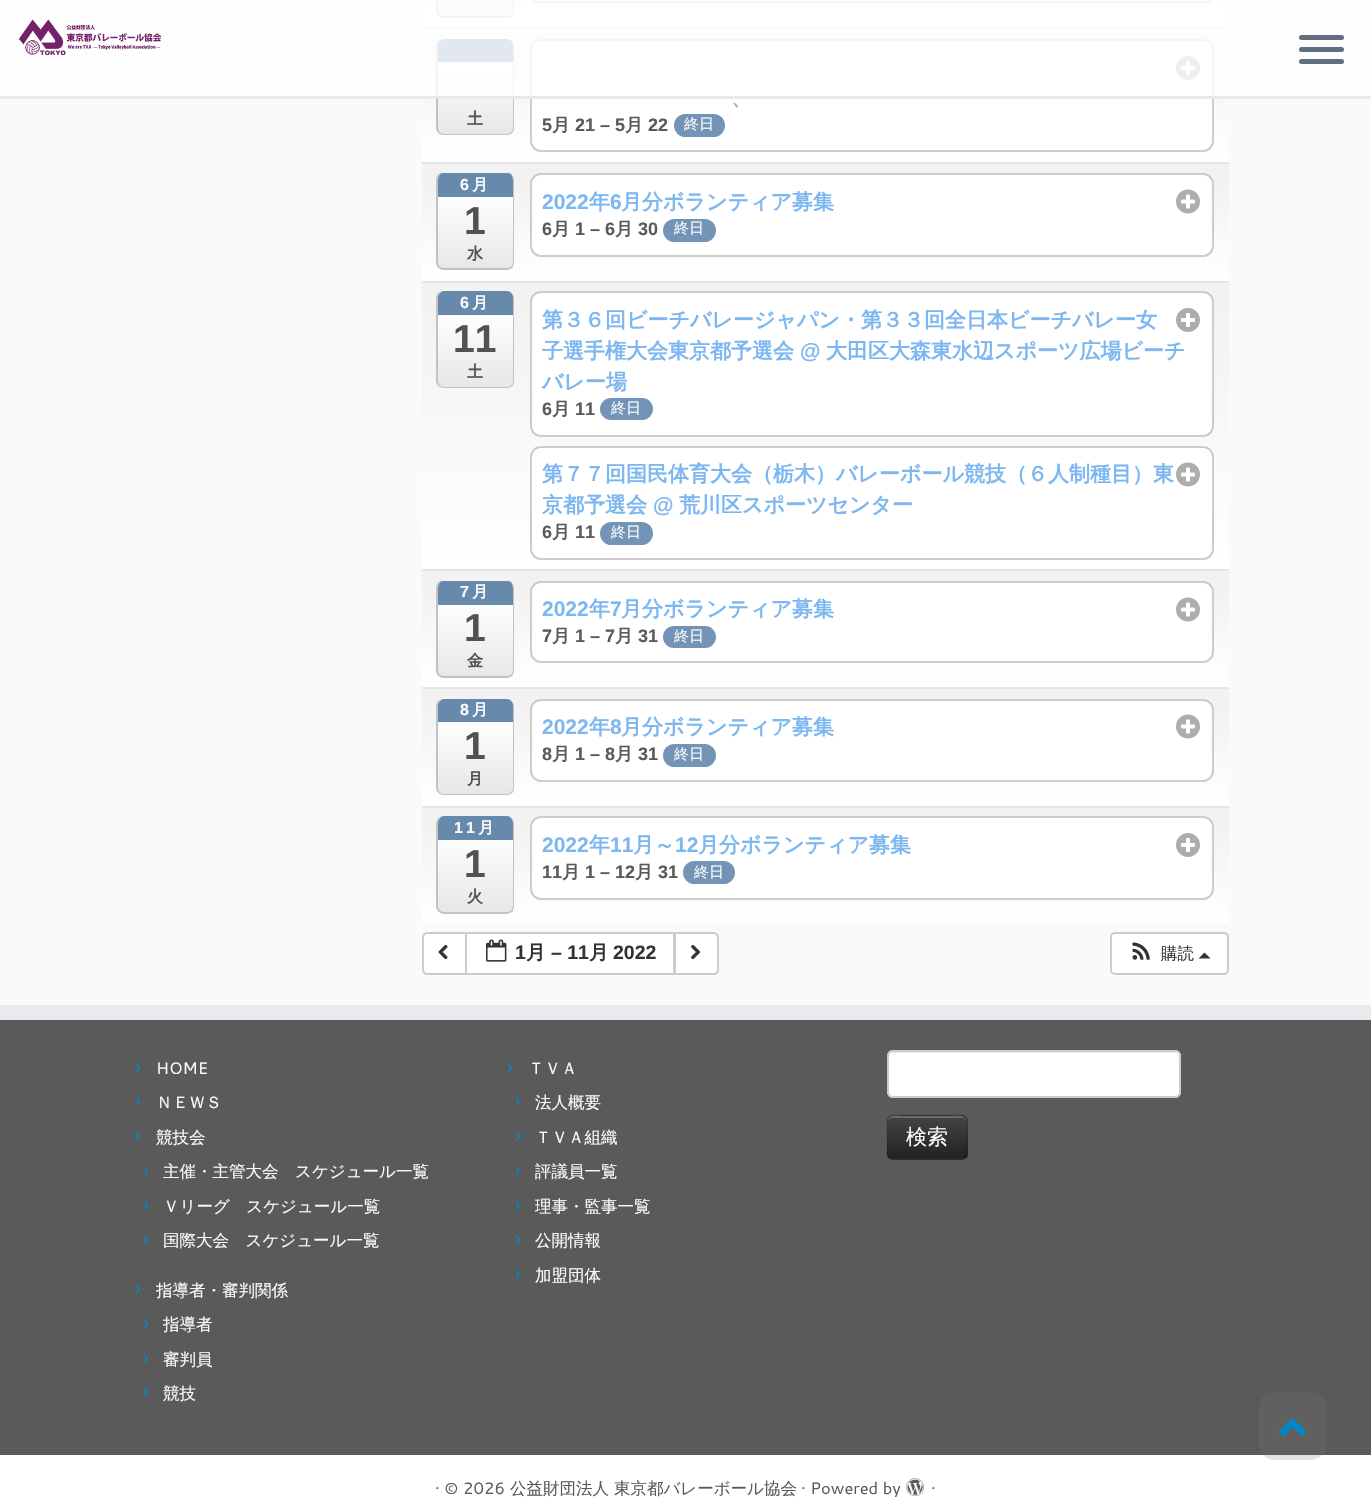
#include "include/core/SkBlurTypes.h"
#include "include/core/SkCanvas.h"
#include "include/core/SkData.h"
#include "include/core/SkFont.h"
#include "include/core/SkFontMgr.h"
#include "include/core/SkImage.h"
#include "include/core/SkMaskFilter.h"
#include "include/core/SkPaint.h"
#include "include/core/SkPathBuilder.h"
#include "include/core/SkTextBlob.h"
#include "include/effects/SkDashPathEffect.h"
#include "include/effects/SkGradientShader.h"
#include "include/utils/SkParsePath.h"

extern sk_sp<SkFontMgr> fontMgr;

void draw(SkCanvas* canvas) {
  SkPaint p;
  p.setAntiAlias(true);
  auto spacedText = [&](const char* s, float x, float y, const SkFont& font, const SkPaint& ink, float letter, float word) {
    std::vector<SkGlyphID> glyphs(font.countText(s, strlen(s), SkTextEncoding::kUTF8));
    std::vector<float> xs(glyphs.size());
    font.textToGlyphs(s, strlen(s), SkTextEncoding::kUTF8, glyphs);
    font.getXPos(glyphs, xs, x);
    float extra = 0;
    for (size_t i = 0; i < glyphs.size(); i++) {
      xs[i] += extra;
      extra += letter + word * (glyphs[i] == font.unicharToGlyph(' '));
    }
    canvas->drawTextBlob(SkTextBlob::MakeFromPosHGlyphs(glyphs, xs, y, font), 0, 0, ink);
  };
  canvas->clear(SkColorSetRGB(250, 250, 250));
  {
    const SkColor colors[] = {SkColorSetRGB(242, 242, 242), SkColorSetRGB(242, 242, 242), SK_ColorWHITE};
    const float stops[] = {0, 0.17f, 1};
    const SkPoint ends[] = {{825, -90}, {825, 27}};
    p.setShader(SkGradientShader::MakeLinear(ends, colors, stops, 3, SkTileMode::kClamp));
    p.setAlpha(255);
  }
  canvas->drawRect(SkRect::MakeLTRB(422, 8, 1229, 27), p);
  p.setShader(nullptr);
  p.setColor(SK_ColorWHITE);
  canvas->drawRoundRect(SkRect::MakeLTRB(531, -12, 1213, 2), 10, 10, p);
  p.setStyle(SkPaint::kStroke_Style);
  p.setStrokeWidth(2);
  p.setColor(SkColorSetRGB(204, 204, 204));
  canvas->drawRoundRect(SkRect::MakeLTRB(531, -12, 1213, 2), 10, 10, p);
  canvas->save();
  canvas->clipPath(SkPathBuilder().moveTo(445, -79).lineTo(507, -79).cubicTo(511.5f, -79, 515, -75.5f, 515, -71).lineTo(515, 10).cubicTo(515, 14.5f, 511.5f, 18, 507, 18).lineTo(445, 18).cubicTo(440.5f, 18, 437, 14.5f, 437, 10).lineTo(437, -71).cubicTo(437, -75.5f, 440.5f, -79, 445, -79).close().detach(), true);
  p.setStyle(SkPaint::kFill_Style);
  {
    const SkColor colors[] = {SK_ColorWHITE, SK_ColorWHITE, SkColorSetRGB(231, 231, 231)};
    const float stops[] = {0, 0.2f, 1};
    const SkPoint ends[] = {{476, -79}, {476, 17}};
    p.setShader(SkGradientShader::MakeLinear(ends, colors, stops, 3, SkTileMode::kClamp));
    p.setAlpha(255);
  }
  canvas->drawRect(SkRect::MakeLTRB(438, 0, 513, 17), p);
  canvas->restore();
  p.setShader(nullptr);
  p.setColor(SkColorSetRGB(194, 194, 194));
  canvas->drawPath(SkPathBuilder(SkPathFillType::kEvenOdd).moveTo(444, -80).lineTo(507, -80).cubicTo(511, -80, 514, -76, 514, -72).lineTo(514, 10).cubicTo(514, 15, 511, 18, 507, 18).lineTo(444, 18).cubicTo(440, 18, 436, 15, 436, 10).lineTo(436, -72).cubicTo(436, -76, 440, -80, 444, -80).close().moveTo(444, -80).lineTo(507, -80).cubicTo(510, -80, 513, -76, 513, -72).lineTo(513, 10).cubicTo(513, 14, 510, 16, 507, 16).lineTo(444, 16).cubicTo(441, 16, 438, 14, 438, 10).lineTo(438, -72).cubicTo(438, -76, 441, -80, 444, -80).close().detach(), p);
  {
    const SkColor colors[] = {SkColorSetRGB(242, 242, 242), SkColorSetRGB(242, 242, 242), SK_ColorWHITE};
    const float stops[] = {0, 0.15f, 1};
    const SkPoint ends[] = {{825, 28}, {825, 162}};
    p.setShader(SkGradientShader::MakeLinear(ends, colors, stops, 3, SkTileMode::kClamp));
    p.setAlpha(255);
  }
  canvas->drawRect(SkRect::MakeLTRB(422, 29, 1229, 162), p);
  p.setShader(nullptr);
  p.setColor(SkColorSetRGB(229, 229, 229));
  canvas->drawRect(SkRect::MakeLTRB(422, 27, 1229, 29), p);
  canvas->save();
  canvas->clipPath(SkPathBuilder().moveTo(445, 39).lineTo(507, 39).cubicTo(511.5f, 39, 515, 42.5f, 515, 47).lineTo(515, 127).cubicTo(515, 131.5f, 511.5f, 135, 507, 135).lineTo(445, 135).cubicTo(440.5f, 135, 437, 131.5f, 437, 127).lineTo(437, 47).cubicTo(437, 42.5f, 440.5f, 39, 445, 39).close().detach(), true);
  {
    const SkColor colors[] = {SK_ColorWHITE, SK_ColorWHITE, SkColorSetRGB(231, 231, 231)};
    const float stops[] = {0, 0.21f, 1};
    const SkPoint ends[] = {{476, 39}, {476, 134}};
    p.setShader(SkGradientShader::MakeLinear(ends, colors, stops, 3, SkTileMode::kClamp));
    p.setAlpha(255);
  }
  canvas->drawRect(SkRect::MakeLTRB(438, 39, 513, 134), p);
  canvas->restore();
  p.setShader(nullptr);
  p.setColor(SkColorSetRGB(194, 194, 194));
  canvas->drawPath(SkPathBuilder(SkPathFillType::kEvenOdd).moveTo(444, 39).lineTo(507, 39).cubicTo(511, 39, 514, 42, 514, 46).lineTo(514, 128).cubicTo(514, 132, 511, 135, 507, 135).lineTo(444, 135).cubicTo(440, 135, 436, 132, 436, 128).lineTo(436, 46).cubicTo(436, 42, 440, 39, 444, 39).close().moveTo(444, 39).lineTo(507, 39).cubicTo(510, 39, 513, 42, 513, 46).lineTo(513, 128).cubicTo(513, 131, 510, 134, 507, 134).lineTo(444, 134).cubicTo(441, 134, 438, 131, 438, 128).lineTo(438, 46).cubicTo(438, 42, 441, 39, 444, 39).close().detach(), p);
  p.setColor(SkColorSetRGB(102, 137, 172));
  canvas->drawPath(SkPathBuilder().moveTo(444, 39).cubicTo(441, 39, 438, 42, 438, 46).lineTo(438, 62).lineTo(513, 62).lineTo(513, 46).cubicTo(513, 42, 510, 39, 507, 39).close().detach(), p);
  p.setColor(SK_ColorWHITE);
  canvas->drawRoundRect(SkRect::MakeLTRB(531, 40, 1213, 151), 10, 10, p);
  p.setStyle(SkPaint::kStroke_Style);
  p.setColor(SkColorSetRGB(204, 204, 204));
  canvas->drawRoundRect(SkRect::MakeLTRB(531, 40, 1213, 151), 10, 10, p);
  canvas->drawImageRect(SkImages::DeferredFromEncodedData(SkData::MakeFromFileName("images/2.png")), SkRect::MakeLTRB(1176, 56, 1200, 80), SkSamplingOptions());
  p.setStyle(SkPaint::kFill_Style);
  p.setColor(SkColorSetARGB(204, 255, 255, 255));
  canvas->drawRect(SkRect::MakeLTRB(0, 0, 1371, 96), p);
  p.setColor(SkColorSetRGB(233, 234, 238));
  canvas->drawRect(SkRect::MakeLTRB(0, 96, 1371, 99), p);
  canvas->drawImageRect(SkImages::DeferredFromEncodedData(SkData::MakeFromFileName("images/1.png")), SkRect::MakeLTRB(18, 19, 162, 55), SkSamplingOptions());
  p.setColor(SkColorSetRGB(95, 111, 129));
  canvas->drawRoundRect(SkRect::MakeLTRB(1299, 35, 1344, 40), 2.5f, 2.5f, p);
  canvas->drawRoundRect(SkRect::MakeLTRB(1299, 47, 1344, 52), 2.5f, 2.5f, p);
  canvas->drawRoundRect(SkRect::MakeLTRB(1299, 59, 1344, 64), 2.5f, 2.5f, p);
  p.setColor(SkColorSetRGB(115, 148, 182));
  canvas->drawRoundRect(SkRect::MakeLTRB(674, 114, 725, 137), 11.5f, 11.5f, p);
  {
    const SkColor colors[] = {SkColorSetRGB(242, 242, 242), SkColorSetRGB(242, 242, 242), SK_ColorWHITE};
    const float stops[] = {0, 0.17f, 1};
    const SkPoint ends[] = {{825, 163}, {825, 281}};
    p.setShader(SkGradientShader::MakeLinear(ends, colors, stops, 3, SkTileMode::kClamp));
    p.setAlpha(255);
  }
  canvas->drawRect(SkRect::MakeLTRB(422, 164, 1229, 281), p);
  p.setShader(nullptr);
  p.setColor(SkColorSetRGB(229, 229, 229));
  canvas->drawRect(SkRect::MakeLTRB(422, 162, 1229, 164), p);
  canvas->save();
  canvas->clipPath(SkPathBuilder().moveTo(445, 173).lineTo(507, 173).cubicTo(511.5f, 173, 515, 176.5f, 515, 181).lineTo(515, 262).cubicTo(515, 266.5f, 511.5f, 270, 507, 270).lineTo(445, 270).cubicTo(440.5f, 270, 437, 266.5f, 437, 262).lineTo(437, 181).cubicTo(437, 176.5f, 440.5f, 173, 445, 173).close().detach(), true);
  {
    const SkColor colors[] = {SK_ColorWHITE, SK_ColorWHITE, SkColorSetRGB(231, 231, 231)};
    const float stops[] = {0, 0.2f, 1};
    const SkPoint ends[] = {{476, 173}, {476, 269}};
    p.setShader(SkGradientShader::MakeLinear(ends, colors, stops, 3, SkTileMode::kClamp));
    p.setAlpha(255);
  }
  canvas->drawRect(SkRect::MakeLTRB(438, 173, 513, 269), p);
  canvas->restore();
  p.setShader(nullptr);
  p.setColor(SkColorSetRGB(194, 194, 194));
  canvas->drawPath(SkPathBuilder(SkPathFillType::kEvenOdd).moveTo(444, 172).lineTo(507, 172).cubicTo(511, 172, 514, 176, 514, 180).lineTo(514, 262).cubicTo(514, 267, 511, 270, 507, 270).lineTo(444, 270).cubicTo(440, 270, 436, 267, 436, 262).lineTo(436, 180).cubicTo(436, 176, 440, 172, 444, 172).close().moveTo(444, 172).lineTo(507, 172).cubicTo(510, 172, 513, 176, 513, 180).lineTo(513, 262).cubicTo(513, 266, 510, 268, 507, 268).lineTo(444, 268).cubicTo(441, 268, 438, 266, 438, 262).lineTo(438, 180).cubicTo(438, 176, 441, 172, 444, 172).close().detach(), p);
  p.setColor(SkColorSetRGB(102, 137, 172));
  canvas->drawPath(SkPathBuilder().moveTo(444, 173).cubicTo(437, 173, 438, 181, 438, 186).lineTo(438, 197).lineTo(513, 197).lineTo(513, 186).cubicTo(513, 181, 514, 173, 507, 173).close().detach(), p);
  p.setColor(SK_ColorWHITE);
  canvas->drawRoundRect(SkRect::MakeLTRB(531, 174, 1213, 256), 10, 10, p);
  p.setStyle(SkPaint::kStroke_Style);
  p.setColor(SkColorSetRGB(204, 204, 204));
  canvas->drawRoundRect(SkRect::MakeLTRB(531, 174, 1213, 256), 10, 10, p);
  canvas->drawImageRect(SkImages::DeferredFromEncodedData(SkData::MakeFromFileName("images/3.png")), SkRect::MakeLTRB(1176, 189, 1200, 214), SkSamplingOptions());
  p.setStyle(SkPaint::kFill_Style);
  p.setColor(SkColorSetRGB(115, 148, 182));
  canvas->drawRoundRect(SkRect::MakeLTRB(663, 219, 716, 242), 11.5f, 11.5f, p);
  {
    const SkColor colors[] = {SkColorSetRGB(242, 242, 242), SkColorSetRGB(242, 242, 242), SK_ColorWHITE};
    const float stops[] = {0, 0.07f, 1};
    const SkPoint ends[] = {{825, 282}, {825, 569}};
    p.setShader(SkGradientShader::MakeLinear(ends, colors, stops, 3, SkTileMode::kClamp));
    p.setAlpha(255);
  }
  canvas->drawRect(SkRect::MakeLTRB(422, 283, 1229, 569), p);
  p.setShader(nullptr);
  p.setColor(SkColorSetRGB(229, 229, 229));
  canvas->drawRect(SkRect::MakeLTRB(422, 281, 1229, 283), p);
  canvas->save();
  canvas->clipPath(SkPathBuilder().moveTo(445, 291).lineTo(507, 291).cubicTo(511.5f, 291, 515, 294.5f, 515, 299).lineTo(515, 381).cubicTo(515, 385.5f, 511.5f, 389, 507, 389).lineTo(445, 389).cubicTo(440.5f, 389, 437, 385.5f, 437, 381).lineTo(437, 299).cubicTo(437, 294.5f, 440.5f, 291, 445, 291).close().detach(), true);
  {
    const SkColor colors[] = {SK_ColorWHITE, SK_ColorWHITE, SkColorSetRGB(231, 231, 231)};
    const float stops[] = {0, 0.2f, 1};
    const SkPoint ends[] = {{476, 291}, {476, 387}};
    p.setShader(SkGradientShader::MakeLinear(ends, colors, stops, 3, SkTileMode::kClamp));
    p.setAlpha(255);
  }
  canvas->drawRect(SkRect::MakeLTRB(438, 291, 513, 387), p);
  canvas->restore();
  p.setShader(nullptr);
  p.setColor(SkColorSetRGB(194, 194, 194));
  canvas->drawPath(SkPathBuilder(SkPathFillType::kEvenOdd).moveTo(444, 291).lineTo(507, 291).cubicTo(511, 291, 514, 294, 514, 298).lineTo(514, 381).cubicTo(514, 385, 511, 388, 507, 388).lineTo(444, 388).cubicTo(440, 388, 436, 385, 436, 381).lineTo(436, 298).cubicTo(436, 294, 440, 291, 444, 291).close().moveTo(444, 291).lineTo(507, 291).cubicTo(510, 291, 513, 294, 513, 298).lineTo(513, 381).cubicTo(513, 384, 510, 387, 507, 387).lineTo(444, 387).cubicTo(441, 387, 438, 384, 438, 381).lineTo(438, 298).cubicTo(438, 294, 441, 291, 444, 291).close().detach(), p);
  p.setColor(SkColorSetRGB(102, 137, 172));
  canvas->drawPath(SkPathBuilder().moveTo(444, 291).cubicTo(441, 291, 438, 294, 438, 298).lineTo(438, 315).lineTo(513, 315).lineTo(513, 298).cubicTo(513, 294, 510, 291, 507, 291).close().detach(), p);
  p.setColor(SK_ColorWHITE);
  canvas->drawRoundRect(SkRect::MakeLTRB(531, 292, 1213, 436), 10, 10, p);
  p.setStyle(SkPaint::kStroke_Style);
  p.setColor(SkColorSetRGB(204, 204, 204));
  canvas->drawRoundRect(SkRect::MakeLTRB(531, 292, 1213, 436), 10, 10, p);
  canvas->drawImageRect(SkImages::DeferredFromEncodedData(SkData::MakeFromFileName("images/2.png")), SkRect::MakeLTRB(1176, 308, 1200, 332), SkSamplingOptions());
  p.setStyle(SkPaint::kFill_Style);
  p.setColor(SkColorSetRGB(115, 148, 182));
  canvas->drawRoundRect(SkRect::MakeLTRB(600, 398, 653, 420), 11, 11, p);
  p.setColor(SK_ColorWHITE);
  canvas->drawRoundRect(SkRect::MakeLTRB(531, 447, 1213, 559), 10, 10, p);
  p.setStyle(SkPaint::kStroke_Style);
  p.setColor(SkColorSetRGB(204, 204, 204));
  canvas->drawRoundRect(SkRect::MakeLTRB(531, 447, 1213, 559), 10, 10, p);
  canvas->drawImageRect(SkImages::DeferredFromEncodedData(SkData::MakeFromFileName("images/3.png")), SkRect::MakeLTRB(1176, 462, 1200, 487), SkSamplingOptions());
  p.setStyle(SkPaint::kFill_Style);
  p.setColor(SkColorSetRGB(115, 148, 182));
  canvas->drawRoundRect(SkRect::MakeLTRB(600, 522, 653, 545), 11.5f, 11.5f, p);
  {
    const SkColor colors[] = {SkColorSetRGB(242, 242, 242), SkColorSetRGB(242, 242, 242), SK_ColorWHITE};
    const float stops[] = {0, 0.17f, 1};
    const SkPoint ends[] = {{825, 570}, {825, 687}};
    p.setShader(SkGradientShader::MakeLinear(ends, colors, stops, 3, SkTileMode::kClamp));
    p.setAlpha(255);
  }
  canvas->drawRect(SkRect::MakeLTRB(422, 571, 1229, 687), p);
  p.setShader(nullptr);
  p.setColor(SkColorSetRGB(229, 229, 229));
  canvas->drawRect(SkRect::MakeLTRB(422, 569, 1229, 571), p);
  canvas->save();
  canvas->clipPath(SkPathBuilder().moveTo(445, 581).lineTo(507, 581).cubicTo(511.5f, 581, 515, 584.5f, 515, 589).lineTo(515, 670).cubicTo(515, 674.5f, 511.5f, 678, 507, 678).lineTo(445, 678).cubicTo(440.5f, 678, 437, 674.5f, 437, 670).lineTo(437, 589).cubicTo(437, 584.5f, 440.5f, 581, 445, 581).close().detach(), true);
  {
    const SkColor colors[] = {SK_ColorWHITE, SK_ColorWHITE, SkColorSetRGB(231, 231, 231)};
    const float stops[] = {0, 0.2f, 1};
    const SkPoint ends[] = {{476, 581}, {476, 677}};
    p.setShader(SkGradientShader::MakeLinear(ends, colors, stops, 3, SkTileMode::kClamp));
    p.setAlpha(255);
  }
  canvas->drawRect(SkRect::MakeLTRB(438, 581, 513, 677), p);
  canvas->restore();
  p.setShader(nullptr);
  p.setColor(SkColorSetRGB(194, 194, 194));
  canvas->drawPath(SkPathBuilder(SkPathFillType::kEvenOdd).moveTo(444, 580).lineTo(507, 580).cubicTo(511, 580, 514, 584, 514, 588).lineTo(514, 670).cubicTo(514, 675, 511, 678, 507, 678).lineTo(444, 678).cubicTo(440, 678, 436, 675, 436, 670).lineTo(436, 588).cubicTo(436, 584, 440, 580, 444, 580).close().moveTo(444, 580).lineTo(507, 580).cubicTo(510, 580, 513, 584, 513, 588).lineTo(513, 670).cubicTo(513, 674, 510, 676, 507, 676).lineTo(444, 676).cubicTo(441, 676, 438, 674, 438, 670).lineTo(438, 588).cubicTo(438, 584, 441, 580, 444, 580).close().detach(), p);
  p.setColor(SkColorSetRGB(102, 137, 172));
  canvas->drawPath(SkPathBuilder().moveTo(444, 581).cubicTo(437, 581, 438, 589, 438, 594).lineTo(438, 605).lineTo(513, 605).lineTo(513, 594).cubicTo(513, 589, 514, 581, 507, 581).close().detach(), p);
  p.setColor(SK_ColorWHITE);
  canvas->drawRoundRect(SkRect::MakeLTRB(531, 582, 1213, 662), 10, 10, p);
  p.setStyle(SkPaint::kStroke_Style);
  p.setColor(SkColorSetRGB(204, 204, 204));
  canvas->drawRoundRect(SkRect::MakeLTRB(531, 582, 1213, 662), 10, 10, p);
  canvas->drawImageRect(SkImages::DeferredFromEncodedData(SkData::MakeFromFileName("images/3.png")), SkRect::MakeLTRB(1176, 597, 1200, 622), SkSamplingOptions());
  p.setStyle(SkPaint::kFill_Style);
  p.setColor(SkColorSetRGB(115, 148, 182));
  canvas->drawRoundRect(SkRect::MakeLTRB(663, 626, 716, 648), 11, 11, p);
  {
    const SkColor colors[] = {SkColorSetRGB(242, 242, 242), SkColorSetRGB(242, 242, 242), SK_ColorWHITE};
    const float stops[] = {0, 0.17f, 1};
    const SkPoint ends[] = {{825, 688}, {825, 806}};
    p.setShader(SkGradientShader::MakeLinear(ends, colors, stops, 3, SkTileMode::kClamp));
    p.setAlpha(255);
  }
  canvas->drawRect(SkRect::MakeLTRB(422, 689, 1229, 806), p);
  p.setShader(nullptr);
  p.setColor(SkColorSetRGB(229, 229, 229));
  canvas->drawRect(SkRect::MakeLTRB(422, 687, 1229, 689), p);
  canvas->save();
  canvas->clipPath(SkPathBuilder().moveTo(445, 699).lineTo(507, 699).cubicTo(511.5f, 699, 515, 702.5f, 515, 707).lineTo(515, 787).cubicTo(515, 791.5f, 511.5f, 795, 507, 795).lineTo(445, 795).cubicTo(440.5f, 795, 437, 791.5f, 437, 787).lineTo(437, 707).cubicTo(437, 702.5f, 440.5f, 699, 445, 699).close().detach(), true);
  {
    const SkColor colors[] = {SK_ColorWHITE, SK_ColorWHITE, SkColorSetRGB(231, 231, 231)};
    const float stops[] = {0, 0.21f, 1};
    const SkPoint ends[] = {{476, 699}, {476, 794}};
    p.setShader(SkGradientShader::MakeLinear(ends, colors, stops, 3, SkTileMode::kClamp));
    p.setAlpha(255);
  }
  canvas->drawRect(SkRect::MakeLTRB(438, 699, 513, 794), p);
  canvas->restore();
  p.setShader(nullptr);
  p.setColor(SkColorSetRGB(194, 194, 194));
  canvas->drawPath(SkPathBuilder(SkPathFillType::kEvenOdd).moveTo(444, 699).lineTo(507, 699).cubicTo(511, 699, 514, 702, 514, 706).lineTo(514, 788).cubicTo(514, 792, 511, 795, 507, 795).lineTo(444, 795).cubicTo(440, 795, 436, 792, 436, 788).lineTo(436, 706).cubicTo(436, 702, 440, 699, 444, 699).close().moveTo(444, 699).lineTo(507, 699).cubicTo(510, 699, 513, 702, 513, 706).lineTo(513, 788).cubicTo(513, 791, 510, 794, 507, 794).lineTo(444, 794).cubicTo(441, 794, 438, 791, 438, 788).lineTo(438, 706).cubicTo(438, 702, 441, 699, 444, 699).close().detach(), p);
  p.setColor(SkColorSetRGB(102, 137, 172));
  canvas->drawPath(SkPathBuilder().moveTo(444, 699).cubicTo(441, 699, 438, 702, 438, 706).lineTo(438, 722).lineTo(513, 722).lineTo(513, 706).cubicTo(513, 702, 510, 699, 507, 699).close().detach(), p);
  p.setColor(SK_ColorWHITE);
  canvas->drawRoundRect(SkRect::MakeLTRB(531, 700, 1213, 781), 10, 10, p);
  p.setStyle(SkPaint::kStroke_Style);
  p.setColor(SkColorSetRGB(204, 204, 204));
  canvas->drawRoundRect(SkRect::MakeLTRB(531, 700, 1213, 781), 10, 10, p);
  canvas->drawImageRect(SkImages::DeferredFromEncodedData(SkData::MakeFromFileName("images/3.png")), SkRect::MakeLTRB(1176, 714, 1200, 739), SkSamplingOptions());
  p.setStyle(SkPaint::kFill_Style);
  p.setColor(SkColorSetRGB(115, 148, 182));
  canvas->drawRoundRect(SkRect::MakeLTRB(663, 744, 716, 767), 11.5f, 11.5f, p);
  {
    const SkColor colors[] = {SkColorSetRGB(242, 242, 242), SkColorSetRGB(242, 242, 242), SK_ColorWHITE};
    const float stops[] = {0, 0.17f, 1};
    const SkPoint ends[] = {{825, 807}, {825, 923}};
    p.setShader(SkGradientShader::MakeLinear(ends, colors, stops, 3, SkTileMode::kClamp));
    p.setAlpha(255);
  }
  canvas->drawRect(SkRect::MakeLTRB(422, 808, 1229, 923), p);
  p.setShader(nullptr);
  p.setColor(SkColorSetRGB(229, 229, 229));
  canvas->drawRect(SkRect::MakeLTRB(422, 806, 1229, 808), p);
  canvas->save();
  canvas->clipPath(SkPathBuilder().moveTo(445, 816).lineTo(507, 816).cubicTo(511.5f, 816, 515, 819.5f, 515, 824).lineTo(515, 906).cubicTo(515, 910.5f, 511.5f, 914, 507, 914).lineTo(445, 914).cubicTo(440.5f, 914, 437, 910.5f, 437, 906).lineTo(437, 824).cubicTo(437, 819.5f, 440.5f, 816, 445, 816).close().detach(), true);
  {
    const SkColor colors[] = {SK_ColorWHITE, SK_ColorWHITE, SkColorSetRGB(231, 231, 231)};
    const float stops[] = {0, 0.2f, 1};
    const SkPoint ends[] = {{476, 816}, {476, 912}};
    p.setShader(SkGradientShader::MakeLinear(ends, colors, stops, 3, SkTileMode::kClamp));
    p.setAlpha(255);
  }
  canvas->drawRect(SkRect::MakeLTRB(438, 816, 513, 912), p);
  canvas->restore();
  p.setShader(nullptr);
  p.setColor(SkColorSetRGB(194, 194, 194));
  canvas->drawPath(SkPathBuilder(SkPathFillType::kEvenOdd).moveTo(444, 816).lineTo(507, 816).cubicTo(511, 816, 514, 819, 514, 824).lineTo(514, 906).cubicTo(514, 910, 511, 914, 507, 914).lineTo(444, 914).cubicTo(440, 914, 436, 910, 436, 906).lineTo(436, 824).cubicTo(436, 819, 440, 816, 444, 816).close().moveTo(444, 816).lineTo(507, 816).cubicTo(510, 816, 513, 819, 513, 824).lineTo(513, 906).cubicTo(513, 909, 510, 912, 507, 912).lineTo(444, 912).cubicTo(441, 912, 438, 909, 438, 906).lineTo(438, 824).cubicTo(438, 819, 441, 816, 444, 816).close().detach(), p);
  p.setColor(SkColorSetRGB(102, 137, 172));
  canvas->drawPath(SkPathBuilder().moveTo(444, 816).cubicTo(441, 816, 438, 819, 438, 824).lineTo(438, 840).lineTo(513, 840).lineTo(513, 824).cubicTo(513, 819, 510, 816, 507, 816).close().detach(), p);
  p.setColor(SK_ColorWHITE);
  canvas->drawRoundRect(SkRect::MakeLTRB(531, 817, 1213, 899), 10, 10, p);
  p.setStyle(SkPaint::kStroke_Style);
  p.setColor(SkColorSetRGB(204, 204, 204));
  canvas->drawRoundRect(SkRect::MakeLTRB(531, 817, 1213, 899), 10, 10, p);
  canvas->drawImageRect(SkImages::DeferredFromEncodedData(SkData::MakeFromFileName("images/2.png")), SkRect::MakeLTRB(1176, 833, 1200, 857), SkSamplingOptions());
  p.setStyle(SkPaint::kFill_Style);
  p.setColor(SkColorSetRGB(115, 148, 182));
  canvas->drawRoundRect(SkRect::MakeLTRB(683, 861, 735, 884), 11.5f, 11.5f, p);
  p.setColor(SK_ColorWHITE);
  canvas->drawPath(SkPathBuilder().moveTo(427, 933).lineTo(466, 933).lineTo(466, 974).lineTo(427, 974).cubicTo(425, 974, 423, 972, 423, 970).lineTo(423, 937).cubicTo(423, 935, 425, 933, 427, 933).close().detach(), p);
  p.setStyle(SkPaint::kStroke_Style);
  p.setColor(SkColorSetRGB(204, 204, 204));
  canvas->drawPath(SkPathBuilder().moveTo(427, 933).lineTo(466, 933).lineTo(466, 974).lineTo(427, 974).cubicTo(425, 974, 423, 972, 423, 970).lineTo(423, 937).cubicTo(423, 935, 425, 933, 427, 933).close().detach(), p);
  canvas->drawImageRect(SkImages::DeferredFromEncodedData(SkData::MakeFromFileName("images/4.png")), SkRect::MakeLTRB(438, 944, 448, 960), SkSamplingOptions());
  p.setStyle(SkPaint::kFill_Style);
  p.setColor(SK_ColorWHITE);
  canvas->drawRect(SkRect::MakeLTRB(466, 933, 674, 974), p);
  p.setStyle(SkPaint::kStroke_Style);
  p.setColor(SkColorSetRGB(204, 204, 204));
  canvas->drawRect(SkRect::MakeLTRB(466, 933, 674, 974), p);
  canvas->drawImageRect(SkImages::DeferredFromEncodedData(SkData::MakeFromFileName("images/5.png")), SkRect::MakeLTRB(486, 939, 507, 962), SkSamplingOptions());
  p.setStyle(SkPaint::kFill_Style);
  p.setColor(SK_ColorWHITE);
  canvas->drawPath(SkPathBuilder().moveTo(675, 933).lineTo(714, 933).cubicTo(716, 933, 718, 935, 718, 937).lineTo(718, 970).cubicTo(718, 972, 716, 974, 714, 974).lineTo(675, 974).close().detach(), p);
  p.setStyle(SkPaint::kStroke_Style);
  p.setColor(SkColorSetRGB(204, 204, 204));
  canvas->drawPath(SkPathBuilder().moveTo(675, 933).lineTo(714, 933).cubicTo(716, 933, 718, 935, 718, 937).lineTo(718, 970).cubicTo(718, 972, 716, 974, 714, 974).lineTo(675, 974).close().detach(), p);
  canvas->drawImageRect(SkImages::DeferredFromEncodedData(SkData::MakeFromFileName("images/6.png")), SkRect::MakeLTRB(691, 944, 701, 960), SkSamplingOptions());
  p.setStyle(SkPaint::kFill_Style);
  p.setColor(SK_ColorWHITE);
  canvas->drawRoundRect(SkRect::MakeLTRB(1111, 933, 1228, 974), 4, 4, p);
  p.setStyle(SkPaint::kStroke_Style);
  p.setColor(SkColorSetRGB(204, 204, 204));
  canvas->drawRoundRect(SkRect::MakeLTRB(1111, 933, 1228, 974), 4, 4, p);
  canvas->drawImageRect(SkImages::DeferredFromEncodedData(SkData::MakeFromFileName("images/7.png")), SkRect::MakeLTRB(1132, 942, 1150, 960), SkSamplingOptions());
  p.setStyle(SkPaint::kFill_Style);
  p.setColor(SkColorSetRGB(51, 51, 51));
  canvas->drawPath(SkPathBuilder().moveTo(1210.5f, 958.5f).lineTo(1198.5f, 958.5f).lineTo(1204.5f, 952.5f).close().detach(), p);
  p.setColor(SkColorSetRGB(90, 90, 90));
  canvas->drawRect(SkRect::MakeLTRB(0, 1020, 1371, 1455), p);
  p.setColor(SkColorSetRGB(233, 234, 238));
  canvas->drawRect(SkRect::MakeLTRB(0, 1005, 1371, 1020), p);
  p.setColor(SK_ColorWHITE);
  canvas->drawRoundRect(SkRect::MakeLTRB(887, 1050, 1181, 1098), 6, 6, p);
  p.setColor(SkColorSetRGB(236, 236, 236));
  canvas->drawPath(SkPathBuilder().moveTo(892, 1053).lineTo(1174, 1053).cubicTo(1177, 1053, 1179, 1055, 1179, 1058).lineTo(1179, 1057).cubicTo(1179, 1054, 1177, 1052, 1174, 1052).lineTo(893, 1052).cubicTo(890, 1052, 888, 1054, 888, 1057).lineTo(888, 1058).cubicTo(888, 1055, 890, 1053, 892, 1053).close().detach(), p);
  p.setStyle(SkPaint::kStroke_Style);
  p.setColor(SkColorSetRGB(204, 204, 204));
  canvas->drawRoundRect(SkRect::MakeLTRB(888, 1051, 1180, 1097), 5, 5, p);
  p.setStyle(SkPaint::kFill_Style);
  p.setColor(SkColorSetRGB(54, 54, 54));
  canvas->drawRoundRect(SkRect::MakeLTRB(887, 1115, 968, 1160), 6, 6, p);
  canvas->save();
  canvas->clipPath(SkPathBuilder().moveTo(893, 1115).lineTo(962, 1115).cubicTo(965.5f, 1115, 968, 1117.5f, 968, 1121).lineTo(968, 1154).cubicTo(968, 1157.5f, 965.5f, 1160, 962, 1160).lineTo(893, 1160).cubicTo(889.5f, 1160, 887, 1157.5f, 887, 1154).lineTo(887, 1121).cubicTo(887, 1117.5f, 889.5f, 1115, 893, 1115).close().detach(), true);
  {
    const SkColor colors[] = {SkColorSetRGB(68, 68, 68), SkColorSetRGB(34, 34, 34)};
    const float stops[] = {0, 1};
    const SkPoint ends[] = {{927, 1116}, {927, 1158}};
    p.setShader(SkGradientShader::MakeLinear(ends, colors, stops, 2, SkTileMode::kClamp));
    p.setAlpha(255);
  }
  canvas->drawRect(SkRect::MakeLTRB(887, 1116, 968, 1158), p);
  canvas->restore();
  p.setShader(nullptr);
  p.setColor(SkColorSetARGB(51, 255, 255, 255));
  canvas->drawPath(SkPathBuilder().moveTo(892, 1118).lineTo(962, 1118).cubicTo(964, 1118, 966, 1120, 966, 1122).cubicTo(966, 1113, 955, 1116, 950, 1116).lineTo(904, 1116).cubicTo(899, 1116, 888, 1113, 888, 1122).cubicTo(888, 1120, 890, 1118, 892, 1118).close().detach(), p);
  p.setStyle(SkPaint::kStroke_Style);
  p.setStrokeWidth(1.5f);
  p.setColor(SkColorSetARGB(64, 0, 0, 0));
  canvas->drawPath(SkPathBuilder().moveTo(965, 1157).cubicTo(964, 1158, 963, 1159, 961.5f, 1159).lineTo(892.5f, 1159).cubicTo(891, 1159, 890, 1158, 889, 1157).detach(), p);
  p.setColor(SkColorSetARGB(26, 0, 0, 0));
  canvas->drawPath(SkPathBuilder().moveTo(889, 1157).cubicTo(888, 1156, 887, 1155, 887, 1153.5f).lineTo(887, 1120.5f).cubicTo(887, 1119, 888, 1118, 889, 1117).cubicTo(890, 1116, 891, 1115, 892.5f, 1115).lineTo(961.5f, 1115).cubicTo(963, 1115, 964, 1116, 965, 1117).cubicTo(966, 1118, 967, 1119, 967, 1120.5f).lineTo(967, 1153.5f).cubicTo(967, 1155, 966, 1156, 965, 1157).detach(), p);
  p.setStyle(SkPaint::kFill_Style);
  p.setColor(SK_ColorWHITE);
  canvas->drawRect(SkRect::MakeLTRB(0, 1455, 1371, 1497), p);
  canvas->drawImageRect(SkImages::DeferredFromEncodedData(SkData::MakeFromFileName("images/8.png")), SkRect::MakeLTRB(906, 1478, 924, 1496), SkSamplingOptions());
  p.setColor(SkColorSetARGB(51, 119, 119, 119));
  canvas->drawRoundRect(SkRect::MakeLTRB(1259, 1392, 1326, 1460), 15, 15, p);
  canvas->drawImageRect(SkImages::DeferredFromEncodedData(SkData::MakeFromFileName("images/9.png")), SkRect::MakeLTRB(1279, 1418, 1306, 1436), SkSamplingOptions());
  SkFont font1(fontMgr->matchFamilyStyle("WenQuanYi Zen Hei", SkFontStyle::Bold()), 16);
  font1.setSubpixel(true);
  p.setColor(SkColorSetRGB(82, 82, 82));
  canvas->drawString("土", 467, 124, font1, p);
  SkFont font2(fontMgr->matchFamilyStyle("WenQuanYi Zen Hei", SkFontStyle::Bold()), 21);
  font2.setSubpixel(true);
  p.setColor(SkColorSetRGB(125, 183, 241));
  canvas->drawString("、", 731, 105, font2, p);
  SkFont font3(fontMgr->matchFamilyStyle("Liberation Sans", SkFontStyle::Bold()), 18);
  font3.setSubpixel(true);
  p.setColor(SkColorSetRGB(90, 90, 90));
  canvas->drawString("5", 542, 131, font3, p);
  SkFont font4(fontMgr->matchFamilyStyle("WenQuanYi Zen Hei", SkFontStyle::Bold()), 18);
  font4.setSubpixel(true);
  canvas->drawString("月", 552, 131, font4, p);
  canvas->drawString("21 – 5", 575, 131, font3, p);
  canvas->drawString("月", 625, 131, font4, p);
  canvas->drawString("22", 648, 131, font3, p);
  SkFont font5(fontMgr->matchFamilyStyle("WenQuanYi Zen Hei", SkFontStyle(500, SkFontStyle::kNormal_Width, SkFontStyle::kUpright_Slant)), 15);
  font5.setSubpixel(true);
  p.setColor(SkColorSetRGB(250, 250, 250));
  canvas->drawString("終日", 684, 129, font5, p);
  SkFont font6(fontMgr->matchFamilyStyle("Liberation Sans", SkFontStyle::Bold()), 16);
  font6.setSubpixel(true);
  spacedText("6", 460, 190, font6, p, 3, 0);
  spacedText("月", 472, 190, font1, p, 3, 0);
  SkFont font7(fontMgr->matchFamilyStyle("Liberation Sans", SkFontStyle::Bold()), 39);
  font7.setSubpixel(true);
  p.setColor(SkColorSetRGB(82, 82, 82));
  canvas->drawString("1", 464, 234, font7, p);
  canvas->drawString("水", 467, 259, font1, p);
  SkFont font8(fontMgr->matchFamilyStyle("Liberation Sans", SkFontStyle::Bold()), 21);
  font8.setSubpixel(true);
  p.setColor(SkColorSetRGB(125, 183, 241));
  canvas->drawString("2022", 542, 209, font8, p);
  canvas->drawString("年", 589, 209, font2, p);
  canvas->drawString("6", 610, 209, font8, p);
  canvas->drawString("月分ボランティア募集", 621, 209, font2, p);
  p.setColor(SkColorSetRGB(90, 90, 90));
  canvas->drawString("6", 542, 235, font3, p);
  canvas->drawString("月", 552, 235, font4, p);
  canvas->drawString("1 – 6", 575, 235, font3, p);
  canvas->drawString("月", 615, 235, font4, p);
  canvas->drawString("30", 638, 235, font3, p);
  p.setColor(SkColorSetRGB(250, 250, 250));
  canvas->drawString("終日", 674, 233, font5, p);
  spacedText("6", 460, 308, font6, p, 3, 0);
  spacedText("月", 472, 308, font1, p, 3, 0);
  p.setColor(SkColorSetRGB(82, 82, 82));
  canvas->drawString("11", 453, 352, font7, p);
  canvas->drawString("土", 467, 377, font1, p);
  p.setColor(SkColorSetRGB(125, 183, 241));
  canvas->drawString("第３６回ビーチバレージャパン・第３３回全日本ビーチバレー女", 542, 327, font2, p);
  canvas->drawString("子選手権大会東京都予選会", 542, 358, font2, p);
  canvas->drawString("@", 800, 358, font8, p);
  canvas->drawString("大田区大森東水辺スポーツ広場ビーチ", 826, 358, font2, p);
  canvas->drawString("バレー場", 542, 389, font2, p);
  p.setColor(SkColorSetRGB(90, 90, 90));
  canvas->drawString("6", 542, 415, font3, p);
  canvas->drawString("月", 552, 415, font4, p);
  canvas->drawString("11", 575, 415, font3, p);
  p.setColor(SkColorSetRGB(250, 250, 250));
  canvas->drawString("終日", 611, 413, font5, p);
  p.setColor(SkColorSetRGB(125, 183, 241));
  canvas->drawString("第７７回国民体育大会（栃木）バレーボール競技（６人制種目）東", 542, 481, font2, p);
  canvas->drawString("京都予選会", 542, 512, font2, p);
  canvas->drawString("@", 653, 512, font8, p);
  canvas->drawString("荒川区スポーツセンター", 679, 512, font2, p);
  p.setColor(SkColorSetRGB(90, 90, 90));
  canvas->drawString("6", 542, 538, font3, p);
  canvas->drawString("月", 552, 538, font4, p);
  canvas->drawString("11", 575, 538, font3, p);
  p.setColor(SkColorSetRGB(250, 250, 250));
  canvas->drawString("終日", 611, 537, font5, p);
  spacedText("7", 460, 597, font6, p, 3, 0);
  spacedText("月", 472, 597, font1, p, 3, 0);
  p.setColor(SkColorSetRGB(82, 82, 82));
  canvas->drawString("1", 464, 641, font7, p);
  canvas->drawString("金", 467, 666, font1, p);
  p.setColor(SkColorSetRGB(125, 183, 241));
  canvas->drawString("2022", 542, 616, font8, p);
  canvas->drawString("年", 589, 616, font2, p);
  canvas->drawString("7", 610, 616, font8, p);
  canvas->drawString("月分ボランティア募集", 621, 616, font2, p);
  p.setColor(SkColorSetRGB(90, 90, 90));
  canvas->drawString("7", 542, 642, font3, p);
  canvas->drawString("月", 552, 642, font4, p);
  canvas->drawString("1 – 7", 575, 642, font3, p);
  canvas->drawString("月", 615, 642, font4, p);
  canvas->drawString("31", 638, 642, font3, p);
  p.setColor(SkColorSetRGB(250, 250, 250));
  canvas->drawString("終日", 674, 641, font5, p);
  spacedText("8", 460, 715, font6, p, 3, 0);
  spacedText("月", 472, 715, font1, p, 3, 0);
  p.setColor(SkColorSetRGB(82, 82, 82));
  canvas->drawString("1", 464, 759, font7, p);
  canvas->drawString("月", 467, 784, font1, p);
  p.setColor(SkColorSetRGB(125, 183, 241));
  canvas->drawString("2022", 542, 734, font8, p);
  canvas->drawString("年", 589, 734, font2, p);
  canvas->drawString("8", 610, 734, font8, p);
  canvas->drawString("月分ボランティア募集", 621, 734, font2, p);
  p.setColor(SkColorSetRGB(90, 90, 90));
  canvas->drawString("8", 542, 760, font3, p);
  canvas->drawString("月", 552, 760, font4, p);
  canvas->drawString("1 – 8", 575, 760, font3, p);
  canvas->drawString("月", 615, 760, font4, p);
  canvas->drawString("31", 638, 760, font3, p);
  p.setColor(SkColorSetRGB(250, 250, 250));
  canvas->drawString("終日", 674, 759, font5, p);
  spacedText("11", 454, 833, font6, p, 3, 0);
  spacedText("月", 478, 833, font1, p, 3, 0);
  p.setColor(SkColorSetRGB(82, 82, 82));
  canvas->drawString("1", 464, 877, font7, p);
  canvas->drawString("火", 467, 902, font1, p);
  p.setColor(SkColorSetRGB(125, 183, 241));
  canvas->drawString("2022", 542, 852, font8, p);
  canvas->drawString("年", 589, 852, font2, p);
  canvas->drawString("11", 610, 852, font8, p);
  canvas->drawString("月～", 633, 852, font2, p);
  canvas->drawString("12", 675, 852, font8, p);
  canvas->drawString("月分ボランティア募集", 698, 852, font2, p);
  p.setColor(SkColorSetRGB(90, 90, 90));
  canvas->drawString("11", 542, 878, font3, p);
  canvas->drawString("月", 562, 878, font4, p);
  canvas->drawString("1 – 12", 585, 878, font3, p);
  canvas->drawString("月", 635, 878, font4, p);
  canvas->drawString("31", 658, 878, font3, p);
  p.setColor(SkColorSetRGB(250, 250, 250));
  canvas->drawString("終日", 694, 877, font5, p);
  SkFont font9(fontMgr->matchFamilyStyle("Liberation Sans", SkFontStyle::Bold()), 19.5f);
  font9.setSubpixel(true);
  p.setColor(SkColorSetRGB(51, 51, 51));
  canvas->drawString("1", 515, 959, font9, p);
  SkFont font10(fontMgr->matchFamilyStyle("WenQuanYi Zen Hei", SkFontStyle::Bold()), 19.5f);
  font10.setSubpixel(true);
  canvas->drawString("月", 526, 959, font10, p);
  canvas->drawString("– 11", 551, 959, font9, p);
  canvas->drawString("月", 589, 959, font10, p);
  canvas->drawString("2022", 613, 959, font9, p);
  SkFont font11(fontMgr->matchFamilyStyle("WenQuanYi Zen Hei", SkFontStyle(500, SkFontStyle::kNormal_Width, SkFontStyle::kUpright_Slant)), 16.5f);
  font11.setSubpixel(true);
  canvas->drawString("購読", 1161, 959, font11, p);
  SkFont font12(fontMgr->matchFamilyStyle("Cantarell", SkFontStyle::Normal()), 21);
  font12.setSubpixel(true);
  p.setColor(SkColorSetRGB(0, 136, 204));
  canvas->drawString("›", 135, 1074, font12, p);
  SkFont font13(fontMgr->matchFamilyStyle("Cantarell", SkFontStyle::Normal()), 16.5f);
  font13.setSubpixel(true);
  p.setColor(SkColorSetRGB(250, 250, 250));
  canvas->drawString("HOME", 156, 1074, font13, p);
  p.setColor(SkColorSetRGB(0, 136, 204));
  canvas->drawString("›", 135, 1108, font12, p);
  p.setColor(SkColorSetRGB(250, 250, 250));
  canvas->drawString("ＮＥＷＳ", 156, 1108, font11, p);
  p.setColor(SkColorSetRGB(0, 136, 204));
  canvas->drawString("›", 135, 1143, font12, p);
  p.setColor(SkColorSetRGB(250, 250, 250));
  canvas->drawString("競技会", 156, 1143, font11, p);
  p.setColor(SkColorSetRGB(0, 136, 204));
  canvas->drawString("›", 143, 1177, font12, p);
  p.setColor(SkColorSetRGB(250, 250, 250));
  canvas->drawString("主催・主管大会　スケジュール一覧", 163, 1177, font11, p);
  p.setColor(SkColorSetRGB(0, 136, 204));
  canvas->drawString("›", 143, 1212, font12, p);
  p.setColor(SkColorSetRGB(250, 250, 250));
  canvas->drawString("Ｖリーグ　スケジュール一覧", 163, 1212, font11, p);
  p.setColor(SkColorSetRGB(0, 136, 204));
  canvas->drawString("›", 143, 1246, font12, p);
  p.setColor(SkColorSetRGB(250, 250, 250));
  canvas->drawString("国際大会　スケジュール一覧", 163, 1246, font11, p);
  p.setColor(SkColorSetRGB(0, 136, 204));
  canvas->drawString("›", 135, 1296, font12, p);
  p.setColor(SkColorSetRGB(250, 250, 250));
  canvas->drawString("指導者・審判関係", 156, 1296, font11, p);
  p.setColor(SkColorSetRGB(0, 136, 204));
  canvas->drawString("›", 143, 1330, font12, p);
  p.setColor(SkColorSetRGB(250, 250, 250));
  canvas->drawString("指導者", 163, 1330, font11, p);
  p.setColor(SkColorSetRGB(0, 136, 204));
  canvas->drawString("›", 143, 1365, font12, p);
  p.setColor(SkColorSetRGB(250, 250, 250));
  canvas->drawString("審判員", 163, 1365, font11, p);
  p.setColor(SkColorSetRGB(0, 136, 204));
  canvas->drawString("›", 143, 1399, font12, p);
  p.setColor(SkColorSetRGB(250, 250, 250));
  canvas->drawString("競技", 163, 1399, font11, p);
  p.setColor(SkColorSetRGB(0, 136, 204));
  canvas->drawString("›", 507, 1074, font12, p);
  p.setColor(SkColorSetRGB(250, 250, 250));
  canvas->drawString("ＴＶＡ", 528, 1074, font11, p);
  p.setColor(SkColorSetRGB(0, 136, 204));
  canvas->drawString("›", 515, 1108, font12, p);
  p.setColor(SkColorSetRGB(250, 250, 250));
  canvas->drawString("法人概要", 535, 1108, font11, p);
  p.setColor(SkColorSetRGB(0, 136, 204));
  canvas->drawString("›", 515, 1143, font12, p);
  p.setColor(SkColorSetRGB(250, 250, 250));
  canvas->drawString("ＴＶＡ組織", 535, 1143, font11, p);
  p.setColor(SkColorSetRGB(0, 136, 204));
  canvas->drawString("›", 515, 1177, font12, p);
  p.setColor(SkColorSetRGB(250, 250, 250));
  canvas->drawString("評議員一覧", 535, 1177, font11, p);
  p.setColor(SkColorSetRGB(0, 136, 204));
  canvas->drawString("›", 515, 1212, font12, p);
  p.setColor(SkColorSetRGB(250, 250, 250));
  canvas->drawString("理事・監事一覧", 535, 1212, font11, p);
  p.setColor(SkColorSetRGB(0, 136, 204));
  canvas->drawString("›", 515, 1246, font12, p);
  p.setColor(SkColorSetRGB(250, 250, 250));
  canvas->drawString("公開情報", 535, 1246, font11, p);
  p.setColor(SkColorSetRGB(0, 136, 204));
  canvas->drawString("›", 515, 1281, font12, p);
  p.setColor(SkColorSetRGB(250, 250, 250));
  canvas->drawString("加盟団体", 535, 1281, font11, p);
  SkFont font14(fontMgr->matchFamilyStyle("WenQuanYi Zen Hei", SkFontStyle(500, SkFontStyle::kNormal_Width, SkFontStyle::kUpright_Slant)), 21);
  font14.setSubpixel(true);
  canvas->drawString("検索", 906, 1144, font14, p);
  p.setColor(SkColorSetRGB(90, 90, 90));
  canvas->drawString("· © 2026", 435, 1494, font13, p);
  canvas->drawString("公益財団法人 東京都バレーボール協会", 510, 1494, font11, p);
  canvas->drawString("· Powered by", 801, 1494, font13, p);
  canvas->drawString("·", 931, 1494, font13, p);
}
